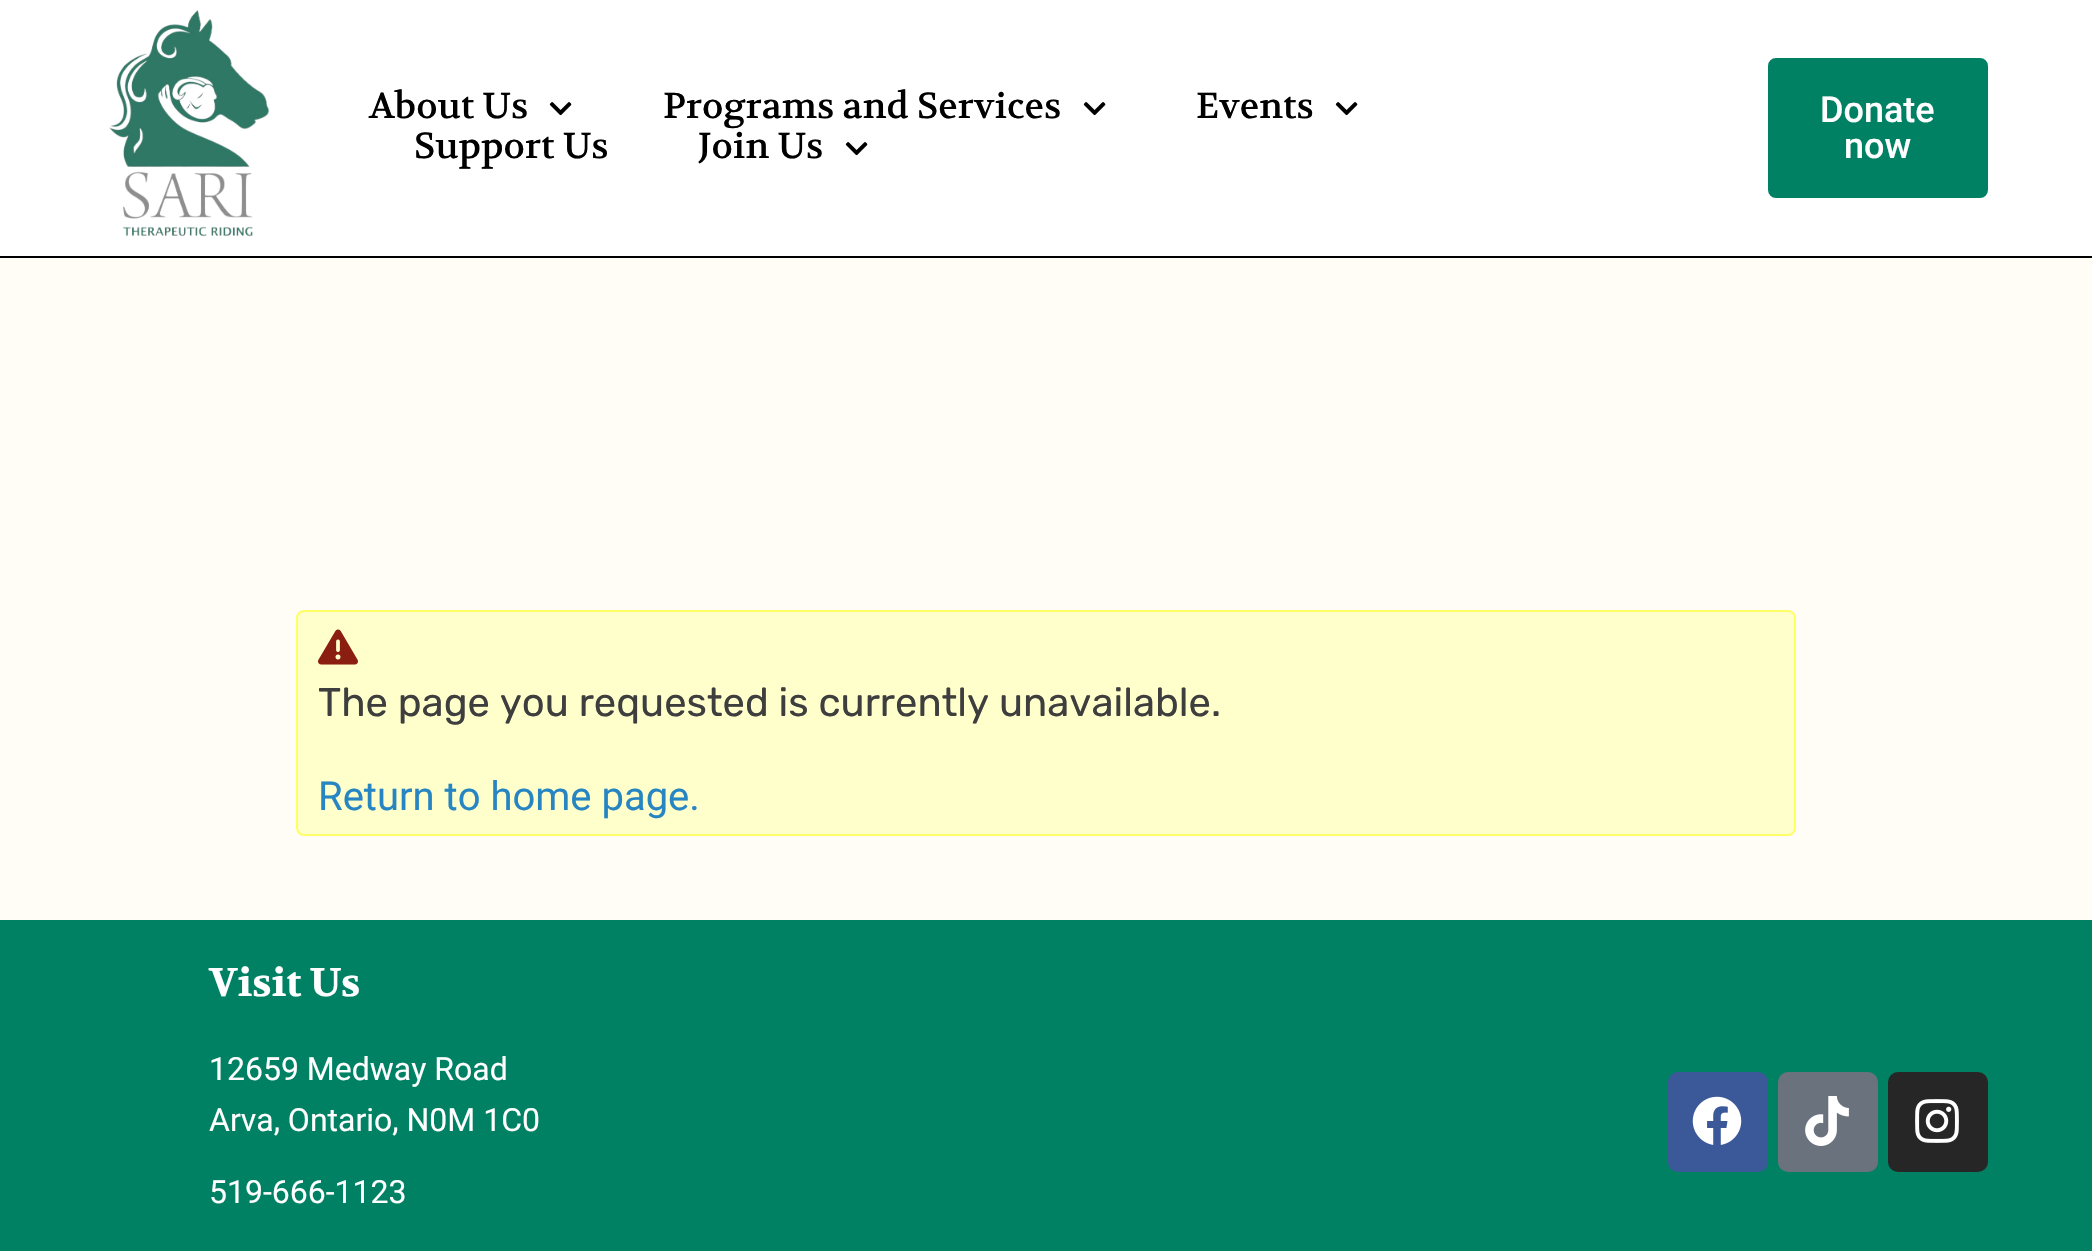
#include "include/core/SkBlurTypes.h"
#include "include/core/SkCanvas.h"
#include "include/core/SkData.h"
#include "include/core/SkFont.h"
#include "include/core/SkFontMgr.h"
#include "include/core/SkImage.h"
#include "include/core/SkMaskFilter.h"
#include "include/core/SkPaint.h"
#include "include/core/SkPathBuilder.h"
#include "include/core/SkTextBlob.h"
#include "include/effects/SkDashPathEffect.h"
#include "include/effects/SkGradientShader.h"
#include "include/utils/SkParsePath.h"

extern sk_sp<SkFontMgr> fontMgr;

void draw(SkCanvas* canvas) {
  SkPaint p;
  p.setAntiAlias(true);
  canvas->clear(SkColorSetRGB(255, 253, 246));
  p.setColor(SK_ColorWHITE);
  canvas->drawRect(SkRect::MakeLTRB(0, 0, 2092, 256), p);
  p.setColor(SK_ColorBLACK);
  canvas->drawRect(SkRect::MakeLTRB(0, 256, 2092, 258), p);
  canvas->drawImageRect(SkImages::DeferredFromEncodedData(SkData::MakeFromFileName("images/1.png")), SkRect::MakeLTRB(109, 10, 270, 237), SkSamplingOptions());
  canvas->drawImageRect(SkImages::DeferredFromEncodedData(SkData::MakeFromFileName("images/2.png")), SkRect::MakeLTRB(549, 102, 572, 116), SkSamplingOptions());
  canvas->drawImageRect(SkImages::DeferredFromEncodedData(SkData::MakeFromFileName("images/2.png")), SkRect::MakeLTRB(1083, 102, 1106, 116), SkSamplingOptions());
  canvas->drawImageRect(SkImages::DeferredFromEncodedData(SkData::MakeFromFileName("images/2.png")), SkRect::MakeLTRB(1335, 102, 1358, 116), SkSamplingOptions());
  canvas->drawImageRect(SkImages::DeferredFromEncodedData(SkData::MakeFromFileName("images/2.png")), SkRect::MakeLTRB(845, 142, 868, 156), SkSamplingOptions());
  p.setColor(SkColorSetRGB(0, 129, 100));
  canvas->drawRoundRect(SkRect::MakeLTRB(1770, 60, 1986, 196), 6, 6, p);
  p.setStyle(SkPaint::kStroke_Style);
  p.setStrokeWidth(4);
  canvas->drawRoundRect(SkRect::MakeLTRB(1770, 60, 1986, 196), 6, 6, p);
  p.setStyle(SkPaint::kFill_Style);
  p.setColor(SkColorSetRGB(255, 255, 204));
  canvas->drawRoundRect(SkRect::MakeLTRB(297, 611, 1795, 835), 7, 7, p);
  p.setStyle(SkPaint::kStroke_Style);
  p.setStrokeWidth(2);
  p.setColor(SkColorSetRGB(255, 255, 102));
  canvas->drawRoundRect(SkRect::MakeLTRB(297, 611, 1795, 835), 7, 7, p);
  canvas->drawImageRect(SkImages::DeferredFromEncodedData(SkData::MakeFromFileName("images/3.png")), SkRect::MakeLTRB(318, 629, 358, 665), SkSamplingOptions());
  p.setStyle(SkPaint::kFill_Style);
  p.setColor(SkColorSetRGB(0, 129, 100));
  canvas->drawRect(SkRect::MakeLTRB(0, 920, 2092, 1251), p);
  p.setColor(SkColorSetRGB(59, 89, 152));
  canvas->drawRoundRect(SkRect::MakeLTRB(1668, 1072, 1768, 1172), 10, 10, p);
  canvas->drawImageRect(SkImages::DeferredFromEncodedData(SkData::MakeFromFileName("images/4.png")), SkRect::MakeLTRB(1692, 1096, 1742, 1145), SkSamplingOptions());
  p.setColor(SkColorSetRGB(105, 114, 125));
  canvas->drawRoundRect(SkRect::MakeLTRB(1778, 1072, 1878, 1172), 10, 10, p);
  canvas->drawImageRect(SkImages::DeferredFromEncodedData(SkData::MakeFromFileName("images/5.png")), SkRect::MakeLTRB(1805, 1096, 1849, 1146), SkSamplingOptions());
  p.setColor(SkColorSetRGB(38, 38, 38));
  canvas->drawRoundRect(SkRect::MakeLTRB(1888, 1072, 1988, 1172), 10, 10, p);
  canvas->drawImageRect(SkImages::DeferredFromEncodedData(SkData::MakeFromFileName("images/6.png")), SkRect::MakeLTRB(1915, 1099, 1959, 1143), SkSamplingOptions());
  SkFont font1(fontMgr->matchFamilyStyle("Volkhov", SkFontStyle::Normal()), 36);
  font1.setSubpixel(true);
  p.setColor(SK_ColorBLACK);
  canvas->drawString("About Us", 369, 118, font1, p);
  canvas->drawString("Programs and Services", 663, 118, font1, p);
  canvas->drawString("Events", 1196, 118, font1, p);
  canvas->drawString("Support Us", 414, 158, font1, p);
  canvas->drawString("Join Us", 698, 158, font1, p);
  SkFont font2(fontMgr->matchFamilyStyle("Roboto", SkFontStyle(500, SkFontStyle::kNormal_Width, SkFontStyle::kUpright_Slant)), 36);
  font2.setSubpixel(true);
  p.setColor(SK_ColorWHITE);
  canvas->drawString("Donate", 1820, 122, font2, p);
  canvas->drawString("now", 1844, 158, font2, p);
  SkFont font3(fontMgr->matchFamilyStyle("Rubik", SkFontStyle::Normal()), 40);
  font3.setSubpixel(true);
  p.setColor(SkColorSetRGB(62, 62, 62));
  canvas->drawString("The page you requested is currently unavailable.", 318, 716, font3, p);
  SkFont font4(fontMgr->matchFamilyStyle("Roboto", SkFontStyle::Normal()), 40);
  font4.setSubpixel(true);
  p.setColor(SkColorSetRGB(39, 134, 194));
  canvas->drawString("Return to home page.", 318, 810, font4, p);
  SkFont font5(fontMgr->matchFamilyStyle("Volkhov", SkFontStyle::Bold()), 40);
  font5.setSubpixel(true);
  p.setColor(SK_ColorWHITE);
  canvas->drawString("Visit Us", 209, 996, font5, p);
  SkFont font6(fontMgr->matchFamilyStyle("Roboto", SkFontStyle::Normal()), 32);
  font6.setSubpixel(true);
  canvas->drawString("12659 Medway Road", 209, 1080, font6, p);
  canvas->drawString("Arva, Ontario, N0M 1C0", 209, 1131, font6, p);
  canvas->drawString("519-666-1123", 209, 1203, font6, p);
}
